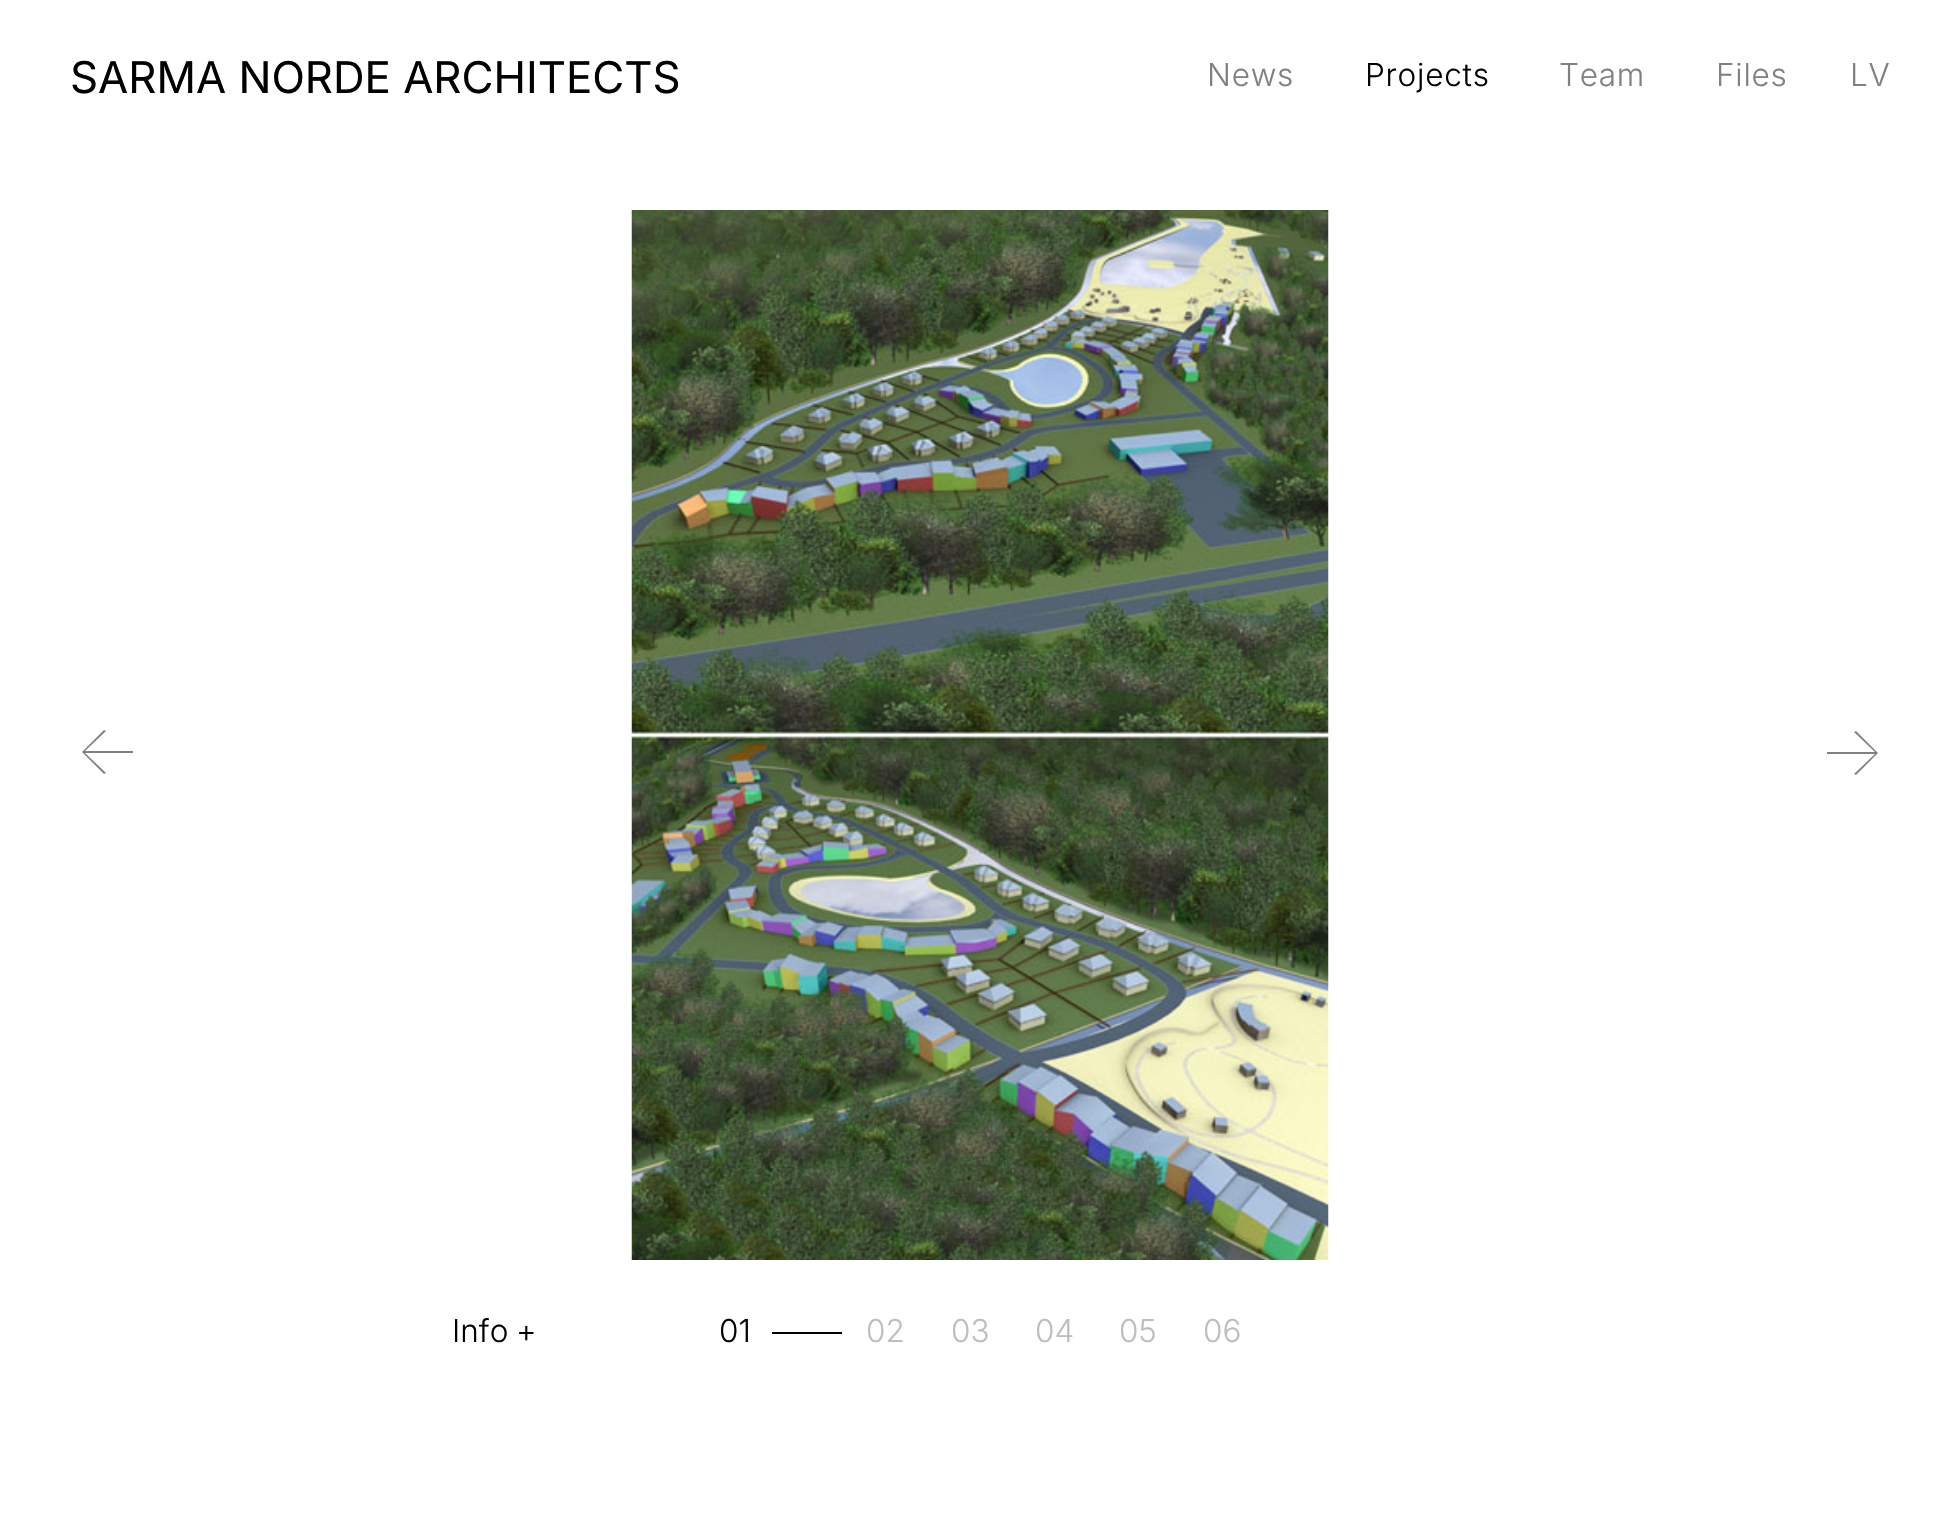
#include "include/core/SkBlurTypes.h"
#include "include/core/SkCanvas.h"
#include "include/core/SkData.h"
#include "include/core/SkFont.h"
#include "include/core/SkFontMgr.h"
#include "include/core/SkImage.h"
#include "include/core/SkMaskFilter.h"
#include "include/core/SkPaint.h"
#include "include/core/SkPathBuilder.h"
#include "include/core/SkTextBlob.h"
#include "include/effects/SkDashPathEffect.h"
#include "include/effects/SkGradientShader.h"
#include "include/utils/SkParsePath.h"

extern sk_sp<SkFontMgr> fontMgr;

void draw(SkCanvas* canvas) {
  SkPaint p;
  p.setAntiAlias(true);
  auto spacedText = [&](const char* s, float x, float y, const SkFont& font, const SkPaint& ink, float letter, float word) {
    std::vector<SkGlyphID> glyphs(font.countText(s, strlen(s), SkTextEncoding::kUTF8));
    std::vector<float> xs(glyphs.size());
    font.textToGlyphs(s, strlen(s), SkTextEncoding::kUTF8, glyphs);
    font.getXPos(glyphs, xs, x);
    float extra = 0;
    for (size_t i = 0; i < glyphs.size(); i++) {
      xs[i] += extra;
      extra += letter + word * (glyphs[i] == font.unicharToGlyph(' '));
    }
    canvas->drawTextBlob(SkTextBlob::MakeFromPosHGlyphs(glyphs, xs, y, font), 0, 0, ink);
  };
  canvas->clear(SK_ColorWHITE);
  p.setColor(SkColorSetRGB(128, 128, 128));
  canvas->drawPath(SkPathBuilder().moveTo(104, 730).lineTo(82, 752).lineTo(104, 774).lineTo(106, 773).lineTo(85, 753).lineTo(133, 753).lineTo(133, 751).lineTo(85, 751).lineTo(106, 731).close().detach(), p);
  canvas->drawPath(SkPathBuilder().moveTo(1856, 775).lineTo(1878, 753).lineTo(1856, 731).lineTo(1854, 732).lineTo(1875, 752).lineTo(1827, 752).lineTo(1827, 754).lineTo(1875, 754).lineTo(1854, 774).close().detach(), p);
  canvas->drawImageRect(SkImages::DeferredFromEncodedData(SkData::MakeFromFileName("images/1.png")), SkRect::MakeLTRB(631, 210, 1329, 1260), SkSamplingOptions());
  p.setColor(SK_ColorBLACK);
  canvas->drawRect(SkRect::MakeLTRB(772, 1332, 842, 1334), p);
  SkFont font1(fontMgr->matchFamilyStyle("Inter", SkFontStyle::Normal()), 43.75f);
  font1.setSubpixel(true);
  canvas->drawString("SARMA NORDE ARCHITECTS", 70, 93, font1, p);
  SkFont font2(fontMgr->matchFamilyStyle("Inter", SkFontStyle(300, SkFontStyle::kNormal_Width, SkFontStyle::kUpright_Slant)), 31.5f);
  font2.setSubpixel(true);
  p.setColor(SkColorSetRGB(128, 128, 128));
  spacedText("News", 1207, 86, font2, p, 0.75f, 0);
  p.setColor(SK_ColorBLACK);
  spacedText("Projects", 1365, 86, font2, p, 0.75f, 0);
  p.setColor(SkColorSetRGB(128, 128, 128));
  spacedText("Team", 1559, 86, font2, p, 0.75f, 0);
  spacedText("Files", 1716, 86, font2, p, 0.75f, 0);
  spacedText("LV", 1850, 86, font2, p, 0.75f, 0);
  p.setColor(SK_ColorBLACK);
  canvas->drawString("Info", 452, 1342, font2, p);
  canvas->drawString("+", 516, 1342, font2, p);
  canvas->drawString("01", 719, 1342, font2, p);
  p.setColor(SkColorSetRGB(189, 189, 189));
  canvas->drawString("02", 866, 1342, font2, p);
  canvas->drawString("03", 951, 1342, font2, p);
  canvas->drawString("04", 1035, 1342, font2, p);
  canvas->drawString("05", 1119, 1342, font2, p);
  canvas->drawString("06", 1203, 1342, font2, p);
}
